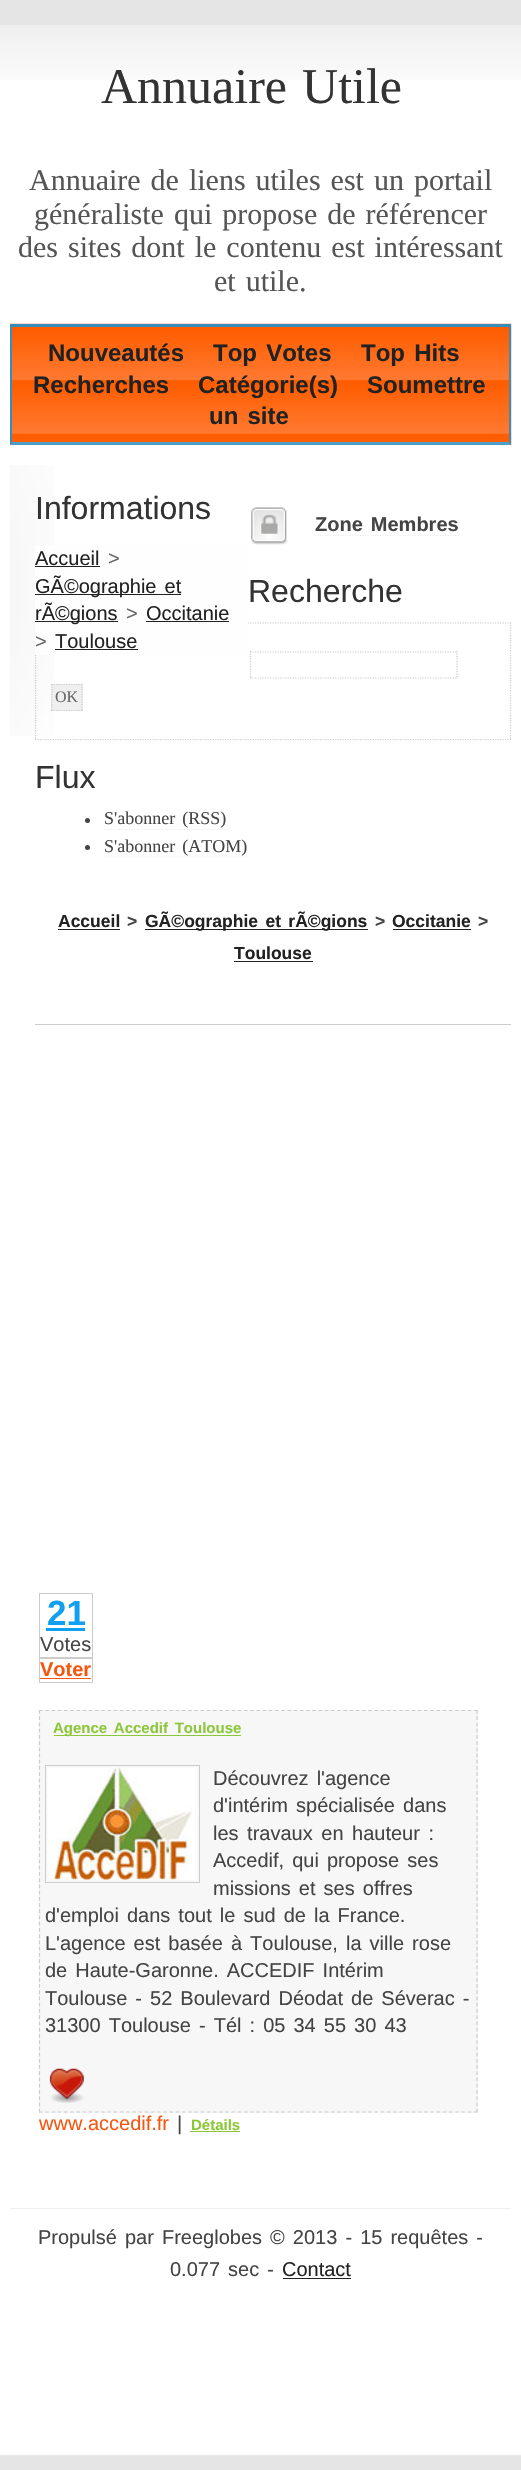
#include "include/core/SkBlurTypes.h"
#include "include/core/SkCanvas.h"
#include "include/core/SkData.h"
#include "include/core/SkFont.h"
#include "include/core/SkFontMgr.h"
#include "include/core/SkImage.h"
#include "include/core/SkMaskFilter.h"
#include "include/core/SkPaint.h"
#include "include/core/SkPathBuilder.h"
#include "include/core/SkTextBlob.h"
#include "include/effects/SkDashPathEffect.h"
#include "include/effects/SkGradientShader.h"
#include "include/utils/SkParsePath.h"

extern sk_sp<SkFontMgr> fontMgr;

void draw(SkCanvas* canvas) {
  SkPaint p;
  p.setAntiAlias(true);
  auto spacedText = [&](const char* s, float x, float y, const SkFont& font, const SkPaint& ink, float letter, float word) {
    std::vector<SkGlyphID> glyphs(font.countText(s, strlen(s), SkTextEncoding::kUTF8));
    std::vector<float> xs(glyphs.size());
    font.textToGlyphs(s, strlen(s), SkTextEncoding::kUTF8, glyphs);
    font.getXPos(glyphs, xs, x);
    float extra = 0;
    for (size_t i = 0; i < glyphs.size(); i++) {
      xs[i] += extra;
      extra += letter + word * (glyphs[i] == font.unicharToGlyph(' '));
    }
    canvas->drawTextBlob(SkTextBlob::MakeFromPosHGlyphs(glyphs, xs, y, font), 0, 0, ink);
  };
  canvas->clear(SK_ColorWHITE);
  canvas->drawImageRect(SkImages::DeferredFromEncodedData(SkData::MakeFromFileName("images/1.png")), SkRect::MakeLTRB(0, 0, 521, 2470), SkSamplingOptions());
  p.setColor(SK_ColorWHITE);
  canvas->drawRect(SkRect::MakeLTRB(0, 80, 521, 2062), p);
  canvas->drawImageRect(SkImages::DeferredFromEncodedData(SkData::MakeFromFileName("images/2.png")), SkRect::MakeLTRB(0, 25, 521, 80), SkSamplingOptions());
  canvas->drawImageRect(SkImages::DeferredFromEncodedData(SkData::MakeFromFileName("images/3.png")), SkRect::MakeLTRB(10, 323, 512, 445), SkSamplingOptions());
  p.setColor(SkColorSetRGB(56, 140, 186));
  canvas->drawRect(SkRect::MakeLTRB(10, 324, 511, 327), p);
  canvas->drawPath(SkPathBuilder().moveTo(511, 324).lineTo(511, 445).lineTo(509, 442).lineTo(509, 326).close().detach(), p);
  p.setColor(SkColorSetRGB(79, 158, 201));
  canvas->drawPath(SkPathBuilder().moveTo(511, 445).lineTo(10, 445).lineTo(12, 442).lineTo(509, 442).close().detach(), p);
  p.setColor(SkColorSetRGB(56, 140, 186));
  canvas->drawPath(SkPathBuilder().moveTo(10, 445).lineTo(10, 324).lineTo(12, 326).lineTo(12, 442).close().detach(), p);
  canvas->drawImageRect(SkImages::DeferredFromEncodedData(SkData::MakeFromFileName("images/4.png")), SkRect::MakeLTRB(10, 465, 54, 736), SkSamplingOptions());
  p.setStyle(SkPaint::kStroke_Style);
  p.setStrokeWidth(1.2f);
  p.setColor(SkColorSetRGB(204, 204, 204));
  p.setPathEffect(SkDashPathEffect::Make({{1.25f, 1.25f}}, 0));
  canvas->drawPath(SkPathBuilder().moveTo(35, 623).lineTo(511, 623).detach(), p);
  p.setPathEffect(nullptr);
  p.setPathEffect(SkDashPathEffect::Make({{1.25f, 1.25f}}, 0));
  canvas->drawPath(SkPathBuilder().moveTo(510.5f, 622.5f).lineTo(510.5f, 740).detach(), p);
  p.setPathEffect(nullptr);
  p.setPathEffect(SkDashPathEffect::Make({{1.25f, 1.25f}}, 0));
  canvas->drawPath(SkPathBuilder().moveTo(35, 739.5f).lineTo(511, 739.5f).detach(), p);
  p.setPathEffect(nullptr);
  p.setPathEffect(SkDashPathEffect::Make({{1.25f, 1.25f}}, 0));
  canvas->drawPath(SkPathBuilder().moveTo(35.5f, 622.5f).lineTo(35.5f, 740).detach(), p);
  p.setPathEffect(nullptr);
  p.setStyle(SkPaint::kFill_Style);
  p.setColor(SkColorSetRGB(254, 254, 254));
  canvas->drawRect(SkRect::MakeLTRB(35, 545, 248, 655), p);
  p.setColor(SkColorSetRGB(34, 34, 34));
  canvas->drawRect(SkRect::MakeLTRB(35, 566, 100, 567), p);
  canvas->drawRect(SkRect::MakeLTRB(35, 594, 181, 595), p);
  canvas->drawRect(SkRect::MakeLTRB(35, 621, 118, 622), p);
  canvas->drawRect(SkRect::MakeLTRB(146, 621, 229, 622), p);
  canvas->drawRect(SkRect::MakeLTRB(55, 649, 138, 650), p);
  canvas->drawImageRect(SkImages::DeferredFromEncodedData(SkData::MakeFromFileName("images/5.png")), SkRect::MakeLTRB(251, 507, 288, 545), SkSamplingOptions());
  p.setStyle(SkPaint::kStroke_Style);
  p.setColor(SkColorSetRGB(238, 238, 238));
  p.setPathEffect(SkDashPathEffect::Make({{1.25f, 1.25f}}, 0));
  canvas->drawPath(SkPathBuilder().moveTo(315, 535.5f).lineTo(459, 535.5f).detach(), p);
  p.setPathEffect(nullptr);
  p.setColor(SkColorSetRGB(204, 204, 204));
  p.setPathEffect(SkDashPathEffect::Make({{1.25f, 1.25f}}, 0));
  canvas->drawPath(SkPathBuilder().moveTo(250, 652).lineTo(457.5f, 652).detach(), p);
  p.setPathEffect(nullptr);
  p.setPathEffect(SkDashPathEffect::Make({{1.25f, 1.25f}}, 0));
  canvas->drawPath(SkPathBuilder().moveTo(457, 651).lineTo(457, 679).detach(), p);
  p.setPathEffect(nullptr);
  p.setPathEffect(SkDashPathEffect::Make({{1.25f, 1.25f}}, 0));
  canvas->drawPath(SkPathBuilder().moveTo(250, 678).lineTo(457.5f, 678).detach(), p);
  p.setPathEffect(nullptr);
  p.setPathEffect(SkDashPathEffect::Make({{1.25f, 1.25f}}, 0));
  canvas->drawPath(SkPathBuilder().moveTo(250.5f, 651).lineTo(250.5f, 679).detach(), p);
  p.setPathEffect(nullptr);
  p.setStyle(SkPaint::kFill_Style);
  p.setColor(SkColorSetRGB(239, 239, 239));
  canvas->drawRect(SkRect::MakeLTRB(51, 684, 83, 711), p);
  p.setStyle(SkPaint::kStroke_Style);
  p.setColor(SkColorSetRGB(204, 204, 204));
  p.setPathEffect(SkDashPathEffect::Make({{1.25f, 1.25f}}, 0));
  canvas->drawPath(SkPathBuilder().moveTo(51, 684.5f).lineTo(82.5f, 684.5f).moveTo(82, 684).lineTo(82, 711).moveTo(51, 710.5f).lineTo(82.5f, 710.5f).moveTo(52, 684).lineTo(52, 711).detach(), p);
  p.setPathEffect(nullptr);
  p.setStyle(SkPaint::kFill_Style);
  p.setColor(SkColorSetRGB(68, 68, 68));
  canvas->drawCircle(87.5f, 820.5f, 2.5f, p);
  p.setStyle(SkPaint::kStroke_Style);
  p.setColor(SkColorSetRGB(238, 238, 238));
  p.setPathEffect(SkDashPathEffect::Make({{1.25f, 1.25f}}, 0));
  canvas->drawPath(SkPathBuilder().moveTo(104, 829.5f).lineTo(226, 829.5f).detach(), p);
  p.setPathEffect(nullptr);
  p.setStyle(SkPaint::kFill_Style);
  p.setColor(SkColorSetRGB(68, 68, 68));
  canvas->drawCircle(87.5f, 847.5f, 2.5f, p);
  p.setStyle(SkPaint::kStroke_Style);
  p.setColor(SkColorSetRGB(238, 238, 238));
  p.setPathEffect(SkDashPathEffect::Make({{1.25f, 1.25f}}, 0));
  canvas->drawPath(SkPathBuilder().moveTo(104, 857).lineTo(247.5f, 857).detach(), p);
  p.setPathEffect(nullptr);
  p.setStyle(SkPaint::kFill_Style);
  p.setColor(SkColorSetRGB(34, 34, 34));
  canvas->drawRect(SkRect::MakeLTRB(58, 929, 120, 930), p);
  canvas->drawRect(SkRect::MakeLTRB(145, 929, 368, 930), p);
  canvas->drawRect(SkRect::MakeLTRB(393, 929, 471, 930), p);
  canvas->drawRect(SkRect::MakeLTRB(234, 961, 313, 962), p);
  p.setColor(SkColorSetRGB(204, 204, 204));
  canvas->drawRect(SkRect::MakeLTRB(35, 1024, 511, 1025), p);
  p.setStyle(SkPaint::kStroke_Style);
  p.setStrokeWidth(1);
  canvas->drawRect(SkRect::MakeLTRB(39.5f, 1593.5f, 92.5f, 1657.5f), p);
  p.setStyle(SkPaint::kFill_Style);
  p.setColor(SkColorSetRGB(17, 159, 240));
  canvas->drawRect(SkRect::MakeLTRB(46, 1628, 85, 1631), p);
  p.setStyle(SkPaint::kStroke_Style);
  p.setColor(SkColorSetRGB(204, 204, 204));
  canvas->drawRect(SkRect::MakeLTRB(39.5f, 1658.5f, 92.5f, 1682.5f), p);
  p.setStyle(SkPaint::kFill_Style);
  p.setColor(SkColorSetRGB(247, 86, 15));
  canvas->drawRect(SkRect::MakeLTRB(40, 1678, 91, 1679), p);
  p.setColor(SkColorSetRGB(247, 247, 247));
  canvas->drawRect(SkRect::MakeLTRB(39, 1710, 478, 2113), p);
  p.setStyle(SkPaint::kStroke_Style);
  p.setStrokeWidth(1.2f);
  p.setColor(SkColorSetRGB(204, 204, 204));
  p.setPathEffect(SkDashPathEffect::Make({{3.75f, 2.46f}}, 0));
  canvas->drawPath(SkPathBuilder().moveTo(39, 1710.5f).lineTo(477.5f, 1710.5f).detach(), p);
  p.setPathEffect(nullptr);
  p.setPathEffect(SkDashPathEffect::Make({{3.75f, 2.48f}}, 0));
  canvas->drawPath(SkPathBuilder().moveTo(477, 1710).lineTo(477, 2112.5f).detach(), p);
  p.setPathEffect(nullptr);
  p.setPathEffect(SkDashPathEffect::Make({{3.75f, 2.46f}}, 0));
  canvas->drawPath(SkPathBuilder().moveTo(39, 2112).lineTo(477.5f, 2112).detach(), p);
  p.setPathEffect(nullptr);
  p.setPathEffect(SkDashPathEffect::Make({{3.75f, 2.48f}}, 0));
  canvas->drawPath(SkPathBuilder().moveTo(39.5f, 1710).lineTo(39.5f, 2112.5f).detach(), p);
  p.setPathEffect(nullptr);
  p.setStyle(SkPaint::kFill_Style);
  p.setColor(SkColorSetRGB(140, 199, 57));
  canvas->drawRect(SkRect::MakeLTRB(54, 1735, 241, 1736), p);
  p.setStyle(SkPaint::kStroke_Style);
  p.setStrokeWidth(1);
  p.setColor(SkColorSetRGB(204, 204, 204));
  canvas->drawRect(SkRect::MakeLTRB(45.5f, 1765.5f, 199.5f, 1882.5f), p);
  canvas->drawImageRect(SkImages::DeferredFromEncodedData(SkData::MakeFromFileName("images/6.png")), SkRect::MakeLTRB(47, 1767, 198, 1880), SkSamplingOptions());
  canvas->drawImageRect(SkImages::DeferredFromEncodedData(SkData::MakeFromFileName("images/7.png")), SkRect::MakeLTRB(49, 2068, 84, 2103), SkSamplingOptions());
  p.setStyle(SkPaint::kFill_Style);
  p.setColor(SkColorSetRGB(140, 199, 57));
  canvas->drawRect(SkRect::MakeLTRB(190, 2131, 240, 2132), p);
  p.setColor(SkColorSetRGB(238, 238, 238));
  canvas->drawRect(SkRect::MakeLTRB(10, 2208, 511, 2209), p);
  p.setColor(SkColorSetRGB(34, 34, 34));
  canvas->drawRect(SkRect::MakeLTRB(283, 2278, 351, 2279), p);
  SkFont font1(fontMgr->matchFamilyStyle("Liberation Serif", SkFontStyle::Normal()), 50);
  font1.setSubpixel(true);
  p.setColor(SkColorSetRGB(51, 51, 51));
  spacedText("Annuaire Utile", 101, 103, font1, p, 0, 2.5f);
  SkFont font2(fontMgr->matchFamilyStyle("Liberation Serif", SkFontStyle::Normal()), 30);
  font2.setSubpixel(true);
  p.setColor(SkColorSetRGB(85, 85, 85));
  spacedText("Annuaire de liens utiles est un portail", 29, 190, font2, p, 0, 2.5f);
  spacedText("généraliste qui propose de référencer", 34, 224, font2, p, 0, 2.5f);
  spacedText("des sites dont le contenu est intéressant", 18, 257, font2, p, 0, 2.5f);
  spacedText("et utile.", 214, 291, font2, p, 0, 2.5f);
  SkFont font3(fontMgr->matchFamilyStyle("Liberation Sans", SkFontStyle::Bold()), 24);
  font3.setSubpixel(true);
  p.setColor(SkColorSetRGB(34, 34, 34));
  canvas->drawString("Nouveautés", 48, 361, font3, p);
  spacedText("Top Votes", 213, 361, font3, p, 0, 2.5f);
  spacedText("Top Hits", 361, 361, font3, p, 0, 2.5f);
  canvas->drawString("Recherches", 33, 393, font3, p);
  canvas->drawString("Catégorie(s)", 198, 393, font3, p);
  canvas->drawString("Soumettre", 367, 393, font3, p);
  spacedText("un site", 209, 424, font3, p, 0, 2.5f);
  SkFont font4(fontMgr->matchFamilyStyle("Liberation Sans", SkFontStyle::Normal()), 32);
  font4.setSubpixel(true);
  p.setColor(SkColorSetRGB(51, 51, 51));
  canvas->drawString("Informations", 35, 519, font4, p);
  SkFont font5(fontMgr->matchFamilyStyle("Liberation Sans", SkFontStyle::Normal()), 20);
  font5.setSubpixel(true);
  p.setColor(SkColorSetRGB(34, 34, 34));
  canvas->drawString("Accueil", 35, 565, font5, p);
  p.setColor(SkColorSetRGB(102, 102, 102));
  canvas->drawString(">", 108, 565, font5, p);
  p.setColor(SkColorSetRGB(34, 34, 34));
  spacedText("GÃ©ographie et", 35, 593, font5, p, 0, 2.5f);
  canvas->drawString("rÃ©gions", 35, 620, font5, p);
  p.setColor(SkColorSetRGB(102, 102, 102));
  canvas->drawString(">", 126, 620, font5, p);
  p.setColor(SkColorSetRGB(34, 34, 34));
  canvas->drawString("Occitanie", 146, 620, font5, p);
  p.setColor(SkColorSetRGB(102, 102, 102));
  canvas->drawString(">", 35, 648, font5, p);
  p.setColor(SkColorSetRGB(34, 34, 34));
  canvas->drawString("Toulouse", 55, 648, font5, p);
  SkFont font6(fontMgr->matchFamilyStyle("Liberation Sans", SkFontStyle::Bold()), 20);
  font6.setSubpixel(true);
  p.setColor(SkColorSetRGB(68, 68, 68));
  spacedText("Zone Membres", 315, 531, font6, p, 0, 2.5f);
  p.setColor(SkColorSetRGB(51, 51, 51));
  canvas->drawString("Recherche", 248, 602, font4, p);
  SkFont font7(fontMgr->matchFamilyStyle("Liberation Serif", SkFontStyle::Normal()), 16);
  font7.setSubpixel(true);
  p.setColor(SkColorSetRGB(102, 102, 102));
  canvas->drawString("OK", 55, 702, font7, p);
  p.setColor(SkColorSetRGB(51, 51, 51));
  canvas->drawString("Flux", 35, 788, font4, p);
  SkFont font8(fontMgr->matchFamilyStyle("Liberation Serif", SkFontStyle::Normal()), 18);
  font8.setSubpixel(true);
  p.setColor(SkColorSetRGB(68, 68, 68));
  spacedText("S'abonner (RSS)", 104, 824, font8, p, 0, 2.5f);
  spacedText("S'abonner (ATOM)", 104, 852, font8, p, 0, 2.5f);
  SkFont font9(fontMgr->matchFamilyStyle("Liberation Sans", SkFontStyle::Bold()), 17.5f);
  font9.setSubpixel(true);
  p.setColor(SkColorSetRGB(34, 34, 34));
  canvas->drawString("Accueil", 58, 927, font9, p);
  p.setColor(SkColorSetRGB(68, 68, 68));
  canvas->drawString(">", 127, 927, font9, p);
  p.setColor(SkColorSetRGB(34, 34, 34));
  spacedText("GÃ©ographie et rÃ©gions", 145, 927, font9, p, 0, 2.5f);
  p.setColor(SkColorSetRGB(68, 68, 68));
  canvas->drawString(">", 375, 927, font9, p);
  p.setColor(SkColorSetRGB(34, 34, 34));
  canvas->drawString("Occitanie", 392, 927, font9, p);
  p.setColor(SkColorSetRGB(68, 68, 68));
  canvas->drawString(">", 478, 927, font9, p);
  p.setColor(SkColorSetRGB(34, 34, 34));
  canvas->drawString("Toulouse", 234, 959, font9, p);
  SkFont font10(fontMgr->matchFamilyStyle("Liberation Sans", SkFontStyle::Bold()), 35);
  font10.setSubpixel(true);
  p.setColor(SkColorSetRGB(17, 159, 240));
  canvas->drawString("21", 47, 1625, font10, p);
  p.setColor(SkColorSetRGB(68, 68, 68));
  canvas->drawString("Votes", 40, 1651, font5, p);
  p.setColor(SkColorSetRGB(247, 86, 15));
  canvas->drawString("Voter", 40, 1676, font6, p);
  SkFont font11(fontMgr->matchFamilyStyle("Liberation Sans", SkFontStyle::Bold()), 15);
  font11.setSubpixel(true);
  p.setColor(SkColorSetRGB(140, 199, 57));
  spacedText("Agence Accedif Toulouse", 53, 1733, font11, p, 0, 2.5f);
  p.setColor(SkColorSetRGB(68, 68, 68));
  spacedText("Découvrez l'agence", 213, 1785, font5, p, 0, 2.5f);
  spacedText("d'intérim spécialisée dans", 213, 1812, font5, p, 0, 2.5f);
  spacedText("les travaux en hauteur :", 213, 1840, font5, p, 0, 3);
  spacedText("Accedif, qui propose ses", 213, 1867, font5, p, 0, 2.5f);
  spacedText("missions et ses offres", 213, 1895, font5, p, 0, 2.5f);
  spacedText("d'emploi dans tout le sud de la France.", 45, 1922, font5, p, 0, 2.5f);
  spacedText("L'agence est basée à Toulouse, la ville rose", 45, 1950, font5, p, 0, 2.5f);
  spacedText("de Haute-Garonne. ACCEDIF Intérim", 45, 1977, font5, p, 0, 2.5f);
  spacedText("Toulouse - 52 Boulevard Déodat de Séverac -", 45, 2005, font5, p, 0, 2.5f);
  spacedText("31300 Toulouse - Tél : 05 34 55 30 43", 45, 2032, font5, p, 0, 2.5f);
  p.setColor(SkColorSetRGB(247, 86, 15));
  canvas->drawString("www.accedif.fr", 39, 2130, font5, p);
  p.setColor(SkColorSetRGB(68, 68, 68));
  canvas->drawString("|", 177, 2130, font5, p);
  p.setColor(SkColorSetRGB(140, 199, 57));
  canvas->drawString("Détails", 191, 2130, font11, p);
  p.setColor(SkColorSetRGB(68, 68, 68));
  spacedText("Propulsé par Freeglobes © 2013 - 15 requêtes -", 38, 2244, font5, p, 0, 2.5f);
  spacedText("0.077 sec -", 170, 2276, font5, p, 0, 2.5f);
  p.setColor(SkColorSetRGB(34, 34, 34));
  canvas->drawString("Contact", 282, 2276, font5, p);
}
